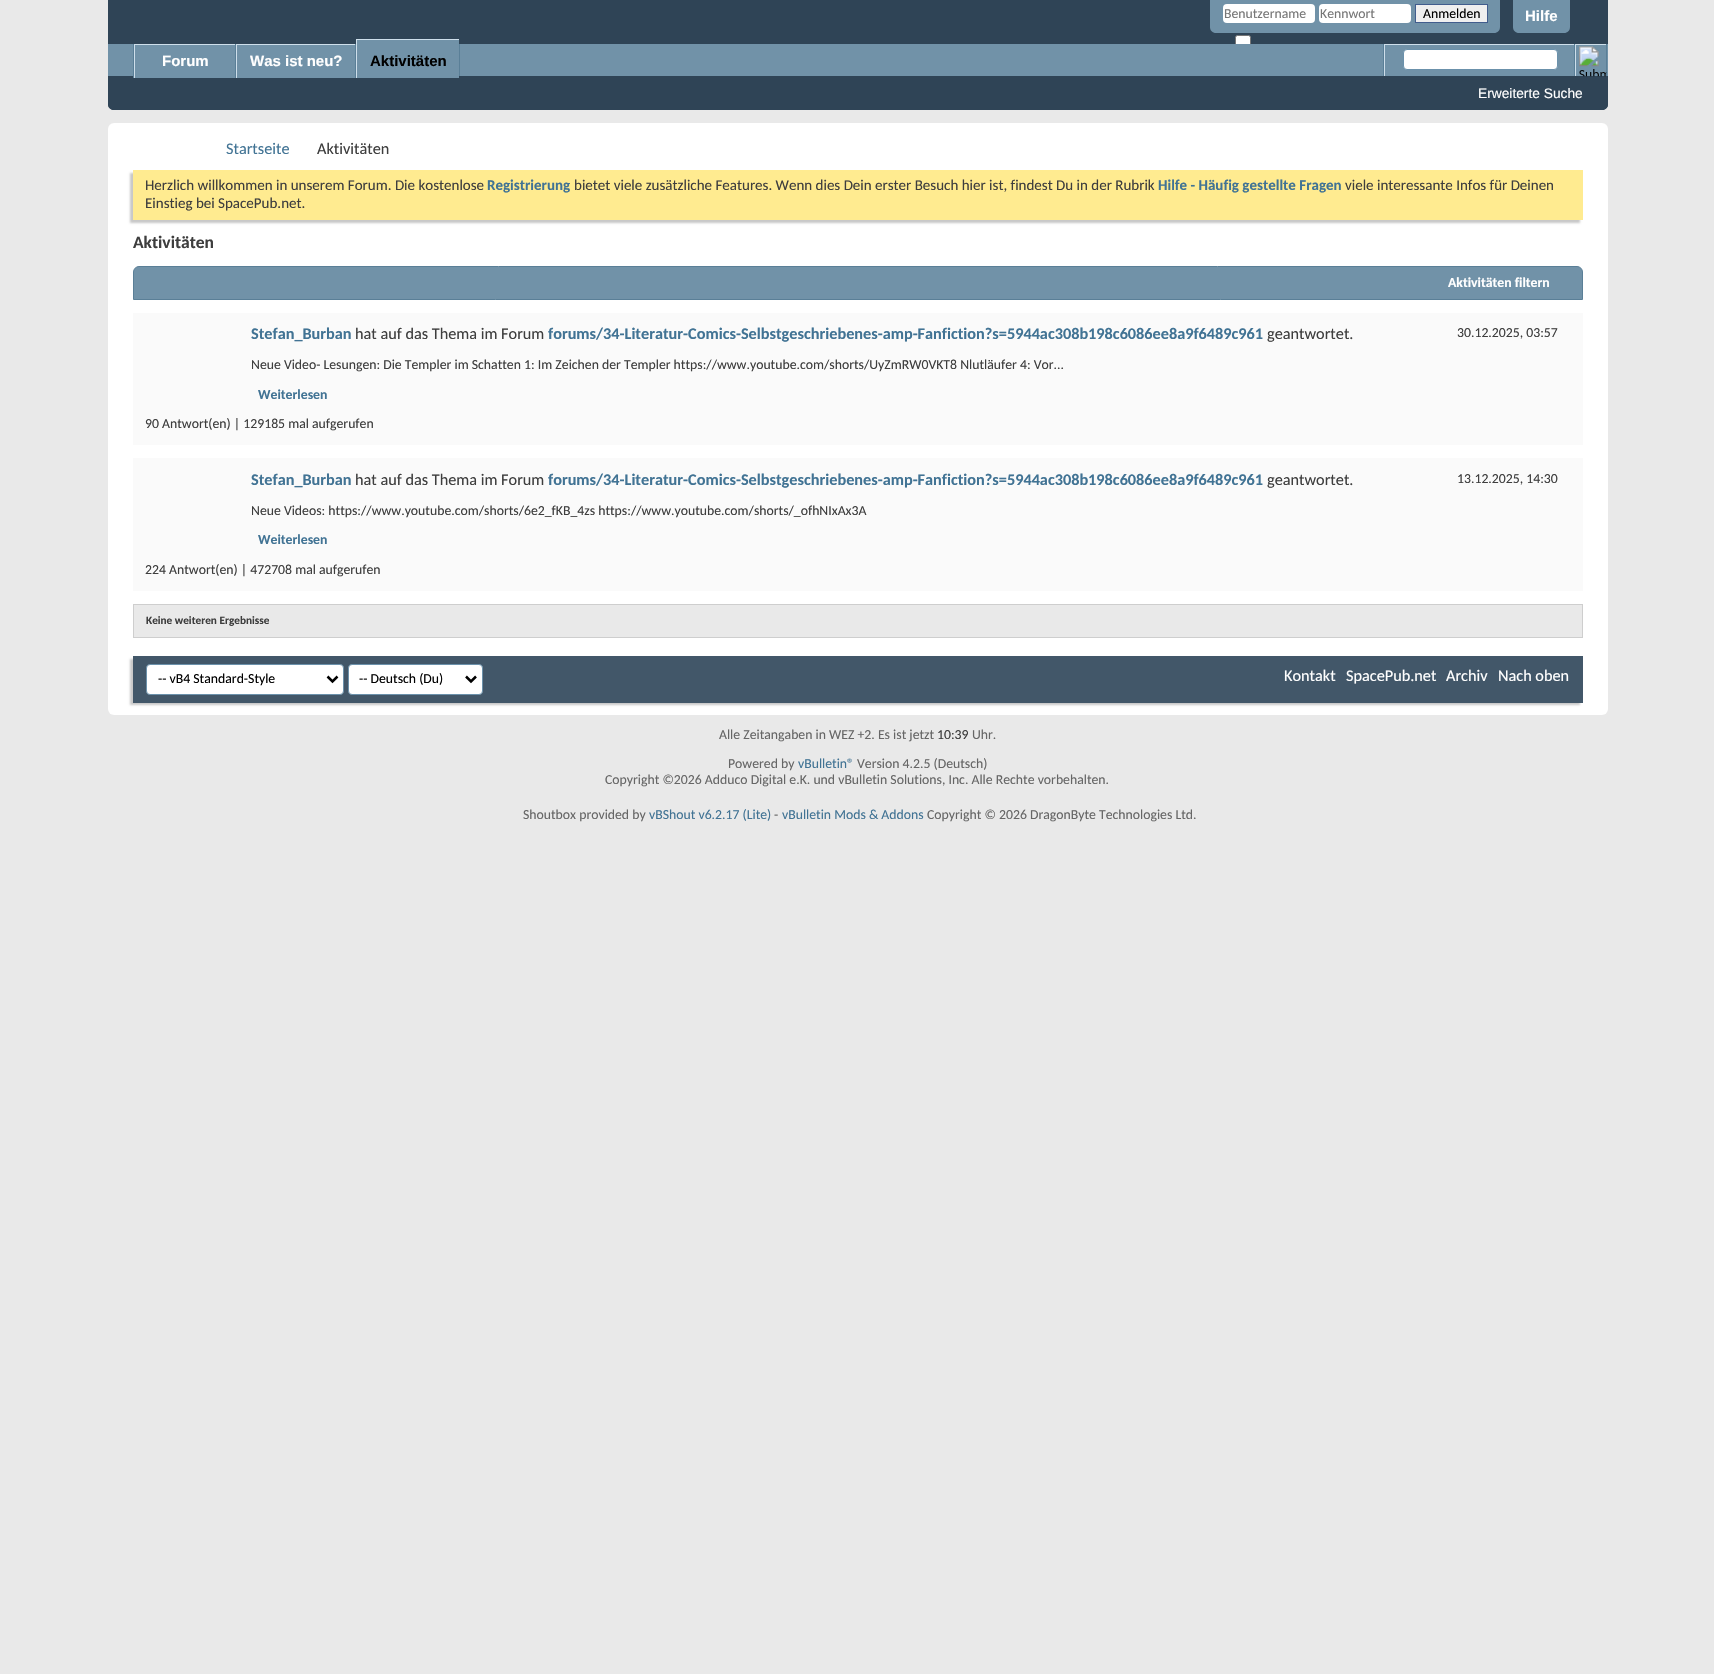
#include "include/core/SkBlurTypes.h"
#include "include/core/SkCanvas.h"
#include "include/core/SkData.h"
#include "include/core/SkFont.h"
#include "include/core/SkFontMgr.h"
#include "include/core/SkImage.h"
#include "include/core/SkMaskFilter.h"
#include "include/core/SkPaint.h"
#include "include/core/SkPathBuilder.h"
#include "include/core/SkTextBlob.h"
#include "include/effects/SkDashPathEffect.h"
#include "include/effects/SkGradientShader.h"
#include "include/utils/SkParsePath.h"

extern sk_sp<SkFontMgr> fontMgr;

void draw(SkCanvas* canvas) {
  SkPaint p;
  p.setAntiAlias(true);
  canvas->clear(SkColorSetRGB(233, 233, 233));
  p.setColor(SkColorSetRGB(47, 68, 86));
  canvas->drawPath(SkPathBuilder().moveTo(108, 0).lineTo(1608, 0).lineTo(1608, 104).cubicTo(1608, 107.5f, 1605.5f, 110, 1602, 110).lineTo(114, 110).cubicTo(110.5f, 110, 108, 107.5f, 108, 104).close().detach(), p);
  p.setColor(SkColorSetRGB(113, 146, 168));
  canvas->drawPath(SkPathBuilder().moveTo(1210, 0).lineTo(1500, 0).lineTo(1500, 27).cubicTo(1500, 30.5f, 1497.5f, 33, 1494, 33).lineTo(1216, 33).cubicTo(1212.5f, 33, 1210, 30.5f, 1210, 27).close().detach(), p);
  p.setColor(SK_ColorWHITE);
  canvas->drawRoundRect(SkRect::MakeLTRB(1223, 4, 1315, 23), 4, 4, p);
  canvas->drawRoundRect(SkRect::MakeLTRB(1319, 4, 1411, 23), 4, 4, p);
  p.setColor(SkColorSetRGB(239, 239, 239));
  canvas->drawRect(SkRect::MakeLTRB(1415.5f, 4.5f, 1487.5f, 22.5f), p);
  p.setStyle(SkPaint::kStroke_Style);
  p.setStrokeWidth(1);
  p.setColor(SkColorSetRGB(65, 93, 141));
  canvas->drawRect(SkRect::MakeLTRB(1415.5f, 4.5f, 1487.5f, 22.5f), p);
  p.setStyle(SkPaint::kFill_Style);
  p.setColor(SK_ColorWHITE);
  canvas->drawRoundRect(SkRect::MakeLTRB(1235.5f, 35.5f, 1250.5f, 50.5f), 2, 2, p);
  p.setStyle(SkPaint::kStroke_Style);
  p.setColor(SkColorSetRGB(118, 118, 118));
  canvas->drawRoundRect(SkRect::MakeLTRB(1235.5f, 35.5f, 1250.5f, 50.5f), 2, 2, p);
  p.setStyle(SkPaint::kFill_Style);
  p.setColor(SkColorSetRGB(113, 146, 168));
  canvas->drawPath(SkPathBuilder().moveTo(1513, 0).lineTo(1570, 0).lineTo(1570, 27).cubicTo(1570, 30.5f, 1567.5f, 33, 1564, 33).lineTo(1519, 33).cubicTo(1515.5f, 33, 1513, 30.5f, 1513, 27).close().detach(), p);
  p.setColor(SkColorSetRGB(47, 68, 86));
  canvas->drawPath(SkPathBuilder().moveTo(108, 44).lineTo(1608, 44).lineTo(1608, 104).cubicTo(1608, 107.5f, 1605.5f, 110, 1602, 110).lineTo(114, 110).cubicTo(110.5f, 110, 108, 107.5f, 108, 104).close().detach(), p);
  p.setColor(SkColorSetRGB(113, 146, 168));
  canvas->drawRect(SkRect::MakeLTRB(108, 44, 1608, 76), p);
  p.setColor(SkColorSetRGB(90, 127, 151));
  canvas->drawRect(SkRect::MakeLTRB(235, 44, 236, 78), p);
  canvas->drawRect(SkRect::MakeLTRB(133, 44, 134, 78), p);
  p.setColor(SkColorSetRGB(113, 146, 168));
  canvas->drawRect(SkRect::MakeLTRB(135, 76, 235, 78), p);
  p.setColor(SkColorSetRGB(206, 223, 235));
  canvas->drawRect(SkRect::MakeLTRB(134, 44, 235, 45), p);
  canvas->drawRect(SkRect::MakeLTRB(134, 44, 135, 78), p);
  p.setColor(SkColorSetRGB(90, 127, 151));
  canvas->drawRect(SkRect::MakeLTRB(355, 44, 356, 78), p);
  p.setColor(SkColorSetRGB(113, 146, 168));
  canvas->drawRect(SkRect::MakeLTRB(237, 76, 355, 78), p);
  p.setColor(SkColorSetRGB(206, 223, 235));
  canvas->drawRect(SkRect::MakeLTRB(236, 44, 355, 45), p);
  canvas->drawRect(SkRect::MakeLTRB(236, 44, 237, 78), p);
  p.setColor(SkColorSetRGB(90, 127, 151));
  canvas->drawRect(SkRect::MakeLTRB(459, 44, 460, 76), p);
  p.setColor(SkColorSetRGB(113, 146, 168));
  canvas->drawRect(SkRect::MakeLTRB(357, 40, 459, 78), p);
  p.setColor(SkColorSetRGB(206, 223, 235));
  canvas->drawRect(SkRect::MakeLTRB(356, 39, 459, 40), p);
  canvas->drawRect(SkRect::MakeLTRB(356, 39, 357, 78), p);
  p.setColor(SkColorSetRGB(90, 127, 151));
  canvas->drawRect(SkRect::MakeLTRB(1383, 44, 1384, 76), p);
  p.setColor(SkColorSetRGB(206, 223, 235));
  canvas->drawRect(SkRect::MakeLTRB(1384, 44, 1574, 45), p);
  canvas->drawRect(SkRect::MakeLTRB(1384, 44, 1385, 76), p);
  p.setColor(SK_ColorWHITE);
  canvas->drawRoundRect(SkRect::MakeLTRB(1403.5f, 49.5f, 1557.5f, 69.5f), 3.5f, 3.5f, p);
  p.setStyle(SkPaint::kStroke_Style);
  p.setColor(SkColorSetRGB(107, 145, 171));
  canvas->drawRoundRect(SkRect::MakeLTRB(1403.5f, 49.5f, 1557.5f, 69.5f), 3.5f, 3.5f, p);
  p.setStyle(SkPaint::kFill_Style);
  p.setColor(SkColorSetRGB(90, 127, 151));
  canvas->drawRect(SkRect::MakeLTRB(1606, 44, 1607, 76), p);
  canvas->drawRect(SkRect::MakeLTRB(1574, 44, 1575, 76), p);
  p.setColor(SkColorSetRGB(206, 223, 235));
  canvas->drawRect(SkRect::MakeLTRB(1575, 44, 1606, 45), p);
  canvas->drawRect(SkRect::MakeLTRB(1575, 44, 1576, 76), p);
  canvas->drawImageRect(SkImages::DeferredFromEncodedData(SkData::MakeFromFileName("images/1.png")), SkRect::MakeLTRB(1579, 46, 1607, 77), SkSamplingOptions());
  p.setColor(SK_ColorWHITE);
  canvas->drawRoundRect(SkRect::MakeLTRB(108, 123, 1608, 715), 6, 6, p);
  p.setColor(SkColorSetRGB(200, 200, 200));
  p.setMaskFilter(SkMaskFilter::MakeBlur(kNormal_SkBlurStyle, 1));
  canvas->drawRect(SkRect::MakeLTRB(130, 173, 1580, 223), p);
  p.setMaskFilter(nullptr);
  p.setColor(SkColorSetRGB(255, 235, 144));
  canvas->drawRect(SkRect::MakeLTRB(133, 170, 1583, 220), p);
  p.setColor(SkColorSetRGB(113, 146, 168));
  canvas->drawPath(SkPathBuilder().moveTo(139, 266.5f).lineTo(1577, 266.5f).cubicTo(1580, 266.5f, 1582.5f, 269, 1582.5f, 272).lineTo(1582.5f, 299.5f).lineTo(133.5f, 299.5f).lineTo(133.5f, 272).cubicTo(133.5f, 269, 136, 266.5f, 139, 266.5f).close().detach(), p);
  p.setStyle(SkPaint::kStroke_Style);
  p.setColor(SkColorSetRGB(90, 127, 151));
  canvas->drawPath(SkPathBuilder().moveTo(139, 266.5f).lineTo(1577, 266.5f).cubicTo(1580, 266.5f, 1582.5f, 269, 1582.5f, 272).lineTo(1582.5f, 299.5f).lineTo(133.5f, 299.5f).lineTo(133.5f, 272).cubicTo(133.5f, 269, 136, 266.5f, 139, 266.5f).close().detach(), p);
  p.setStyle(SkPaint::kFill_Style);
  p.setColor(SkColorSetRGB(250, 250, 250));
  canvas->drawRect(SkRect::MakeLTRB(133, 313, 1583, 445), p);
  canvas->drawRect(SkRect::MakeLTRB(133, 458, 1583, 591), p);
  p.setColor(SkColorSetRGB(233, 233, 233));
  canvas->drawRect(SkRect::MakeLTRB(133.5f, 604.5f, 1582.5f, 637.5f), p);
  p.setStyle(SkPaint::kStroke_Style);
  p.setColor(SkColorSetRGB(206, 206, 206));
  canvas->drawRect(SkRect::MakeLTRB(133.5f, 604.5f, 1582.5f, 637.5f), p);
  p.setStyle(SkPaint::kFill_Style);
  p.setColor(SkColorSetRGB(200, 200, 200));
  p.setMaskFilter(SkMaskFilter::MakeBlur(kNormal_SkBlurStyle, 1));
  canvas->drawRect(SkRect::MakeLTRB(130, 659, 1580, 705), p);
  p.setMaskFilter(nullptr);
  p.setColor(SkColorSetRGB(66, 87, 105));
  canvas->drawRect(SkRect::MakeLTRB(133, 656, 1583, 703), p);
  p.setColor(SK_ColorWHITE);
  canvas->drawRoundRect(SkRect::MakeLTRB(146.5f, 664.5f, 343.5f, 694.5f), 3.5f, 3.5f, p);
  p.setStyle(SkPaint::kStroke_Style);
  p.setColor(SkColorSetRGB(107, 145, 171));
  canvas->drawRoundRect(SkRect::MakeLTRB(146.5f, 664.5f, 343.5f, 694.5f), 3.5f, 3.5f, p);
  p.setStrokeWidth(2.5f);
  p.setColor(SK_ColorBLACK);
  canvas->drawPath(SkPathBuilder().moveTo(327.5f, 676.5f).lineTo(332.5f, 681.5f).lineTo(337.5f, 676.5f).detach(), p);
  p.setStyle(SkPaint::kFill_Style);
  p.setColor(SK_ColorWHITE);
  canvas->drawRoundRect(SkRect::MakeLTRB(348.5f, 664.5f, 482.5f, 694.5f), 3.5f, 3.5f, p);
  p.setStyle(SkPaint::kStroke_Style);
  p.setStrokeWidth(1);
  p.setColor(SkColorSetRGB(107, 145, 171));
  canvas->drawRoundRect(SkRect::MakeLTRB(348.5f, 664.5f, 482.5f, 694.5f), 3.5f, 3.5f, p);
  p.setStrokeWidth(2.5f);
  p.setColor(SK_ColorBLACK);
  canvas->drawPath(SkPathBuilder().moveTo(466, 676.5f).lineTo(471, 681.5f).lineTo(476, 676.5f).detach(), p);
  SkFont font1(fontMgr->matchFamilyStyle("Carlito", SkFontStyle::Normal()), 13.75f);
  font1.setSubpixel(true);
  p.setStyle(SkPaint::kFill_Style);
  p.setColor(SkColorSetRGB(119, 119, 119));
  canvas->drawString("Benutzername", 1224, 18, font1, p);
  canvas->drawString("Kennwort", 1320, 18, font1, p);
  p.setColor(SK_ColorBLACK);
  canvas->drawString("Anmelden", 1423, 18, font1, p);
  SkFont font2(fontMgr->matchFamilyStyle("Liberation Sans", SkFontStyle::Bold()), 15);
  font2.setSubpixel(true);
  p.setColor(SK_ColorWHITE);
  canvas->drawString("Hilfe", 1525, 21, font2, p);
  canvas->drawString("Forum", 162, 66, font2, p);
  canvas->drawString("Was ist neu?", 250, 66, font2, p);
  p.setColor(SK_ColorBLACK);
  canvas->drawString("Aktivitäten", 370, 66, font2, p);
  SkFont font3(fontMgr->matchFamilyStyle("Liberation Sans", SkFontStyle::Normal()), 13.75f);
  font3.setSubpixel(true);
  p.setColor(SK_ColorWHITE);
  canvas->drawString("Erweiterte Suche", 1478, 98, font3, p);
  SkFont font4(fontMgr->matchFamilyStyle("Carlito", SkFontStyle::Normal()), 16.25f);
  font4.setSubpixel(true);
  p.setColor(SkColorSetRGB(65, 115, 148));
  canvas->drawString("Startseite", 226, 154, font4, p);
  p.setColor(SkColorSetRGB(62, 62, 62));
  canvas->drawString("Aktivitäten", 317, 154, font4, p);
  SkFont font5(fontMgr->matchFamilyStyle("Carlito", SkFontStyle::Normal()), 15);
  font5.setSubpixel(true);
  canvas->drawString("Herzlich willkommen in unserem Forum. Die kostenlose", 145, 190, font5, p);
  SkFont font6(fontMgr->matchFamilyStyle("Carlito", SkFontStyle::Bold()), 15);
  font6.setSubpixel(true);
  p.setColor(SkColorSetRGB(65, 115, 148));
  canvas->drawString("Registrierung", 487, 190, font6, p);
  p.setColor(SkColorSetRGB(62, 62, 62));
  canvas->drawString("bietet viele zusätzliche Features. Wenn dies Dein erster Besuch hier ist, findest Du in der Rubrik", 574, 190, font5, p);
  p.setColor(SkColorSetRGB(65, 115, 148));
  canvas->drawString("Hilfe - Häufig gestellte Fragen", 1158, 190, font6, p);
  p.setColor(SkColorSetRGB(62, 62, 62));
  canvas->drawString("viele interessante Infos für Deinen", 1345, 190, font5, p);
  canvas->drawString("Einstieg bei SpacePub.net.", 145, 208, font5, p);
  SkFont font7(fontMgr->matchFamilyStyle("Carlito", SkFontStyle::Bold()), 17.5f);
  font7.setSubpixel(true);
  canvas->drawString("Aktivitäten", 133, 248, font7, p);
  SkFont font8(fontMgr->matchFamilyStyle("Carlito", SkFontStyle::Bold()), 13.75f);
  font8.setSubpixel(true);
  p.setColor(SK_ColorWHITE);
  canvas->drawString("Aktivitäten filtern", 1448, 287, font8, p);
  SkFont font9(fontMgr->matchFamilyStyle("Carlito", SkFontStyle::Bold()), 16.25f);
  font9.setSubpixel(true);
  p.setColor(SkColorSetRGB(65, 115, 148));
  canvas->drawString("Stefan_Burban", 251, 339, font9, p);
  p.setColor(SkColorSetRGB(62, 62, 62));
  canvas->drawString("hat auf das Thema im Forum", 355, 339, font4, p);
  p.setColor(SkColorSetRGB(65, 115, 148));
  canvas->drawString("forums/34-Literatur-Comics-Selbstgeschriebenes-amp-Fanfiction?s=5944ac308b198c6086ee8a9f6489c961", 548, 339, font9, p);
  p.setColor(SkColorSetRGB(62, 62, 62));
  canvas->drawString("geantwortet.", 1267, 339, font4, p);
  canvas->drawString("30.12.2025, 03:57", 1457, 337, font1, p);
  canvas->drawString("Neue Video- Lesungen: Die Templer im Schatten 1: Im Zeichen der Templer https://www.youtube.com/shorts/UyZmRW0VKT8 Nlutläufer 4: Vor...", 251, 369, font1, p);
  p.setColor(SkColorSetRGB(65, 115, 148));
  canvas->drawString("Weiterlesen", 258, 399, font8, p);
  p.setColor(SkColorSetRGB(62, 62, 62));
  canvas->drawString("90 Antwort(en) | 129185 mal aufgerufen", 145, 428, font1, p);
  p.setColor(SkColorSetRGB(65, 115, 148));
  canvas->drawString("Stefan_Burban", 251, 485, font9, p);
  p.setColor(SkColorSetRGB(62, 62, 62));
  canvas->drawString("hat auf das Thema im Forum", 355, 485, font4, p);
  p.setColor(SkColorSetRGB(65, 115, 148));
  canvas->drawString("forums/34-Literatur-Comics-Selbstgeschriebenes-amp-Fanfiction?s=5944ac308b198c6086ee8a9f6489c961", 548, 485, font9, p);
  p.setColor(SkColorSetRGB(62, 62, 62));
  canvas->drawString("geantwortet.", 1267, 485, font4, p);
  canvas->drawString("13.12.2025, 14:30", 1457, 483, font1, p);
  canvas->drawString("Neue Videos: https://www.youtube.com/shorts/6e2_fKB_4zs https://www.youtube.com/shorts/_ofhNIxAx3A", 251, 515, font1, p);
  p.setColor(SkColorSetRGB(65, 115, 148));
  canvas->drawString("Weiterlesen", 258, 544, font8, p);
  p.setColor(SkColorSetRGB(62, 62, 62));
  canvas->drawString("224 Antwort(en) | 472708 mal aufgerufen", 145, 574, font1, p);
  SkFont font10(fontMgr->matchFamilyStyle("Carlito", SkFontStyle::Bold()), 11.25f);
  font10.setSubpixel(true);
  canvas->drawString("Keine weiteren Ergebnisse", 146, 624, font10, p);
  p.setColor(SK_ColorBLACK);
  canvas->drawString("-- vB4 Standard-Style", 158, 683, font1, p);
  canvas->drawString("-- Deutsch (Du)", 359, 683, font1, p);
  p.setColor(SK_ColorWHITE);
  canvas->drawString("Kontakt", 1284, 681, font4, p);
  canvas->drawString("SpacePub.net", 1346, 681, font4, p);
  canvas->drawString("Archiv", 1446, 681, font4, p);
  canvas->drawString("Nach oben", 1498, 681, font4, p);
  p.setColor(SkColorSetRGB(102, 102, 102));
  canvas->drawString("Alle Zeitangaben in WEZ +2. Es ist jetzt", 719, 739, font1, p);
  p.setColor(SkColorSetRGB(62, 62, 62));
  canvas->drawString("10:39", 937, 739, font1, p);
  p.setColor(SkColorSetRGB(102, 102, 102));
  canvas->drawString("Uhr.", 972, 739, font1, p);
  canvas->drawString("Powered by", 728, 768, font1, p);
  p.setColor(SkColorSetRGB(65, 115, 148));
  canvas->drawString("vBulletin®", 798, 768, font1, p);
  p.setColor(SkColorSetRGB(102, 102, 102));
  canvas->drawString("Version 4.2.5 (Deutsch)", 857, 768, font1, p);
  canvas->drawString("Copyright ©2026 Adduco Digital e.K. und vBulletin Solutions, Inc. Alle Rechte vorbehalten.", 605, 784, font1, p);
  canvas->drawString("Shoutbox provided by", 523, 819, font1, p);
  p.setColor(SkColorSetRGB(65, 115, 148));
  canvas->drawString("vBShout v6.2.17 (Lite)", 649, 819, font1, p);
  p.setColor(SkColorSetRGB(102, 102, 102));
  canvas->drawString("-", 774, 819, font1, p);
  p.setColor(SkColorSetRGB(65, 115, 148));
  canvas->drawString("vBulletin Mods & Addons", 782, 819, font1, p);
  p.setColor(SkColorSetRGB(102, 102, 102));
  canvas->drawString("Copyright © 2026 DragonByte Technologies Ltd.", 927, 819, font1, p);
}
